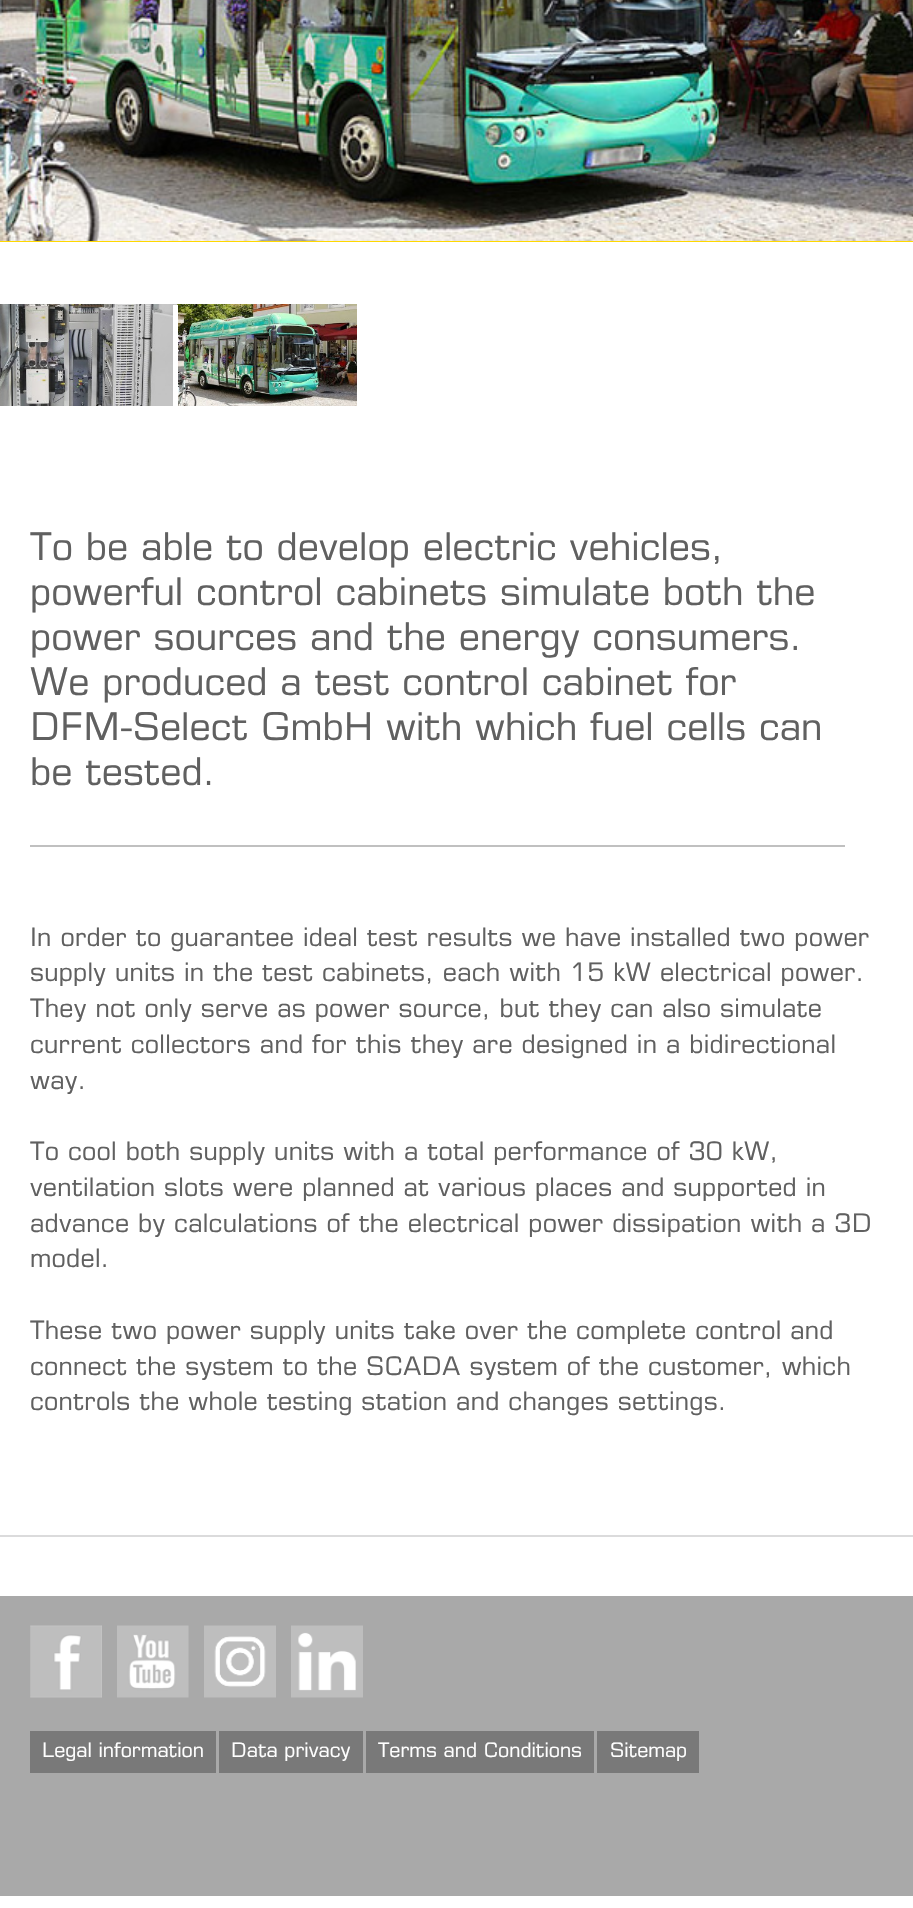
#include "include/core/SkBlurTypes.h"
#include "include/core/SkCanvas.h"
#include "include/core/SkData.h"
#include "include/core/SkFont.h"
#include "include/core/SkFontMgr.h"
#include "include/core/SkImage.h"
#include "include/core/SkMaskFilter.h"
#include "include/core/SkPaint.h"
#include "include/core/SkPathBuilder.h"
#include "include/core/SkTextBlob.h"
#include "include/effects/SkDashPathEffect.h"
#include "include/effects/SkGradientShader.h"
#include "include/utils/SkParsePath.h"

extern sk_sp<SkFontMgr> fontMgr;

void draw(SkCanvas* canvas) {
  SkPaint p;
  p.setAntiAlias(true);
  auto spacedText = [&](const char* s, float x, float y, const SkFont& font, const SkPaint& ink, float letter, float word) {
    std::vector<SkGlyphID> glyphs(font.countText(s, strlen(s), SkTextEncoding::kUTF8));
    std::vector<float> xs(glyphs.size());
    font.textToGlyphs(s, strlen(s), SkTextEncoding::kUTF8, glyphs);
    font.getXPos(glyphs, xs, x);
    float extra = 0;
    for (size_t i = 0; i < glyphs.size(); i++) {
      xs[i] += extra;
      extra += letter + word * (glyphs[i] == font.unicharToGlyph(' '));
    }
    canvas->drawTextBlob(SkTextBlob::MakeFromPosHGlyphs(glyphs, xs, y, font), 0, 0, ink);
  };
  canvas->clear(SK_ColorWHITE);
  p.setColor(SkColorSetRGB(255, 216, 0));
  canvas->drawRect(SkRect::MakeLTRB(0, 241, 913, 242), p);
  canvas->drawImageRect(SkImages::DeferredFromEncodedData(SkData::MakeFromFileName("images/1.png")), SkRect::MakeLTRB(0, 0, 913, 241), SkSamplingOptions());
  p.setColor(SkColorSetRGB(219, 219, 220));
  canvas->drawRect(SkRect::MakeLTRB(0, 1535, 913, 1537), p);
  p.setColor(SkColorSetRGB(192, 192, 192));
  canvas->drawRect(SkRect::MakeLTRB(30, 845, 845, 847), p);
  canvas->drawImageRect(SkImages::DeferredFromEncodedData(SkData::MakeFromFileName("images/2.png")), SkRect::MakeLTRB(0, 304, 177, 406), SkSamplingOptions());
  canvas->drawImageRect(SkImages::DeferredFromEncodedData(SkData::MakeFromFileName("images/3.png")), SkRect::MakeLTRB(177, 304, 357, 406), SkSamplingOptions());
  canvas->save();
  canvas->clipRect(SkRect::MakeLTRB(0, 305, 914, 455));
  p.setStyle(SkPaint::kStroke_Style);
  p.setStrokeWidth(5);
  p.setColor(SK_ColorWHITE);
  canvas->drawRect(SkRect::MakeLTRB(175.5f, 302.5f, 359.5f, 408.5f), p);
  canvas->restore();
  p.setStyle(SkPaint::kFill_Style);
  p.setColor(SkColorSetRGB(169, 169, 169));
  canvas->drawRect(SkRect::MakeLTRB(0, 1596, 913, 1896), p);
  canvas->drawImageRect(SkImages::DeferredFromEncodedData(SkData::MakeFromFileName("images/4.png")), SkRect::MakeLTRB(30, 1625, 102, 1698), SkSamplingOptions());
  canvas->drawImageRect(SkImages::DeferredFromEncodedData(SkData::MakeFromFileName("images/5.png")), SkRect::MakeLTRB(117, 1625, 189, 1698), SkSamplingOptions());
  canvas->drawImageRect(SkImages::DeferredFromEncodedData(SkData::MakeFromFileName("images/6.png")), SkRect::MakeLTRB(204, 1625, 276, 1698), SkSamplingOptions());
  canvas->drawImageRect(SkImages::DeferredFromEncodedData(SkData::MakeFromFileName("images/7.png")), SkRect::MakeLTRB(291, 1625, 363, 1698), SkSamplingOptions());
  p.setColor(SkColorSetRGB(121, 121, 121));
  canvas->drawRect(SkRect::MakeLTRB(30, 1731, 216, 1773), p);
  canvas->drawRect(SkRect::MakeLTRB(219, 1731, 363, 1773), p);
  canvas->drawRect(SkRect::MakeLTRB(366, 1731, 594, 1773), p);
  canvas->drawRect(SkRect::MakeLTRB(597, 1731, 699, 1773), p);
  SkFont font1(fontMgr->matchFamilyStyle("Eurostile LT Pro", SkFontStyle::Normal()), 38.3f);
  font1.setSubpixel(true);
  p.setColor(SkColorSetRGB(96, 96, 96));
  canvas->drawString("To be able to develop electric vehicles,", 30, 560, font1, p);
  canvas->drawString("powerful control cabinets simulate both the", 30, 605, font1, p);
  canvas->drawString("power sources and the energy consumers.", 30, 650, font1, p);
  canvas->drawString("We produced a test control cabinet for", 30, 695, font1, p);
  canvas->drawString("DFM-Select GmbH with which fuel cells can", 30, 740, font1, p);
  canvas->drawString("be tested.", 30, 785, font1, p);
  SkFont font2(fontMgr->matchFamilyStyle("Eurostile LT Pro", SkFontStyle::Normal()), 25.55f);
  font2.setSubpixel(true);
  spacedText("In order to guarantee ideal test results we have installed two power", 30, 946, font2, p, 0.25f, 0);
  spacedText("supply units in the test cabinets, each with 15 kW electrical power.", 30, 981, font2, p, 0.25f, 0);
  spacedText("They not only serve as power source, but they can also simulate", 30, 1017, font2, p, 0.25f, 0);
  spacedText("current collectors and for this they are designed in a bidirectional", 30, 1053, font2, p, 0.25f, 0);
  spacedText("way.", 30, 1089, font2, p, 0.25f, 0);
  spacedText("To cool both supply units with a total performance of 30 kW,", 30, 1160, font2, p, 0.25f, 0);
  spacedText("ventilation slots were planned at various places and supported in", 30, 1196, font2, p, 0.25f, 0);
  spacedText("advance by calculations of the electrical power dissipation with a 3D", 30, 1232, font2, p, 0.25f, 0);
  spacedText("model.", 30, 1267, font2, p, 0.25f, 0);
  spacedText("These two power supply units take over the complete control and", 30, 1339, font2, p, 0.25f, 0);
  spacedText("connect the system to the SCADA system of the customer, which", 30, 1375, font2, p, 0.25f, 0);
  spacedText("controls the whole testing station and changes settings.", 30, 1410, font2, p, 0.25f, 0);
  SkFont font3(fontMgr->matchFamilyStyle("Eurostile LT Pro", SkFontStyle::Normal()), 20);
  font3.setSubpixel(true);
  p.setColor(SK_ColorWHITE);
  canvas->drawString("Legal information", 42, 1757, font3, p);
  canvas->drawString("Data privacy", 231, 1757, font3, p);
  canvas->drawString("Terms and Conditions", 378, 1757, font3, p);
  canvas->drawString("Sitemap", 610, 1757, font3, p);
}
